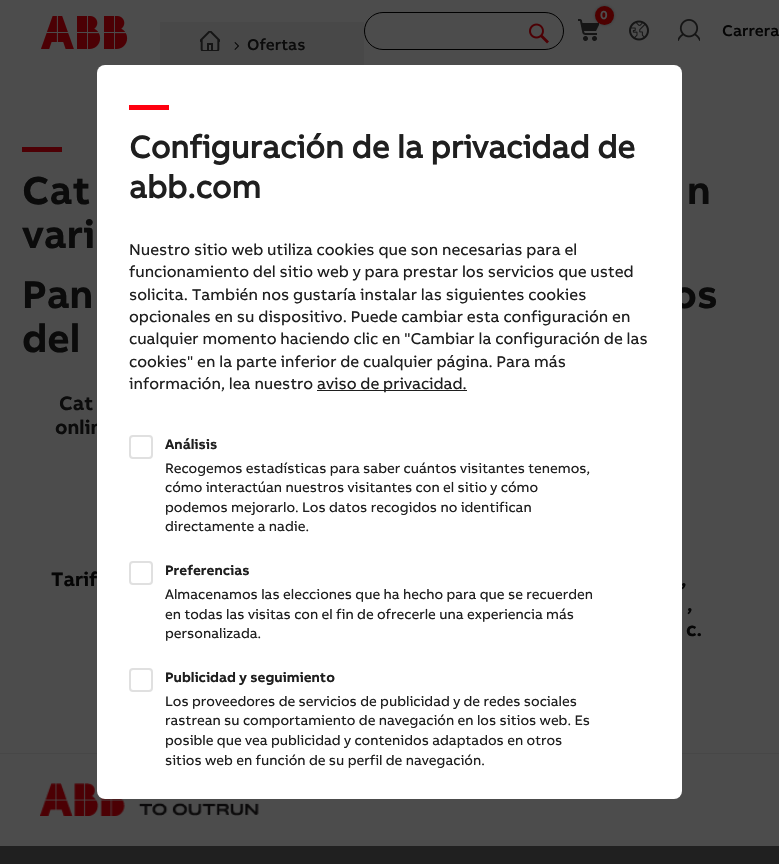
#include "include/core/SkBlurTypes.h"
#include "include/core/SkCanvas.h"
#include "include/core/SkData.h"
#include "include/core/SkFont.h"
#include "include/core/SkFontMgr.h"
#include "include/core/SkImage.h"
#include "include/core/SkMaskFilter.h"
#include "include/core/SkPaint.h"
#include "include/core/SkPathBuilder.h"
#include "include/core/SkTextBlob.h"
#include "include/effects/SkDashPathEffect.h"
#include "include/effects/SkGradientShader.h"
#include "include/utils/SkParsePath.h"

extern sk_sp<SkFontMgr> fontMgr;

void draw(SkCanvas* canvas) {
  SkPaint p;
  p.setAntiAlias(true);
  canvas->clear(SkColorSetRGB(76, 76, 76));
  canvas->drawImageRect(SkImages::DeferredFromEncodedData(SkData::MakeFromFileName("images/1.png")), SkRect::MakeLTRB(41, 16, 128, 49), SkSamplingOptions());
  p.setStyle(SkPaint::kStroke_Style);
  p.setStrokeWidth(1);
  p.setColor(SK_ColorBLACK);
  canvas->drawRoundRect(SkRect::MakeLTRB(364.5f, 12.5f, 563.5f, 49.5f), 18.5f, 18.5f, p);
  canvas->drawImageRect(SkImages::DeferredFromEncodedData(SkData::MakeFromFileName("images/2.png")), SkRect::MakeLTRB(529, 23, 549, 44), SkSamplingOptions());
  canvas->drawImageRect(SkImages::DeferredFromEncodedData(SkData::MakeFromFileName("images/3.png")), SkRect::MakeLTRB(578, 19, 599, 41), SkSamplingOptions());
  p.setStyle(SkPaint::kFill_Style);
  p.setColor(SkColorSetARGB(77, 0, 0, 0));
  p.setMaskFilter(SkMaskFilter::MakeBlur(kNormal_SkBlurStyle, 1.5f));
  canvas->drawRoundRect(SkRect::MakeLTRB(595, 6, 614, 25), 9.5f, 9.5f, p);
  p.setMaskFilter(nullptr);
  p.setColor(SkColorSetRGB(77, 0, 0));
  canvas->drawCircle(604.5f, 15.5f, 9.5f, p);
  canvas->drawImageRect(SkImages::DeferredFromEncodedData(SkData::MakeFromFileName("images/4.png")), SkRect::MakeLTRB(629, 20, 649, 41), SkSamplingOptions());
  canvas->drawImageRect(SkImages::DeferredFromEncodedData(SkData::MakeFromFileName("images/5.png")), SkRect::MakeLTRB(678, 19, 700, 41), SkSamplingOptions());
  p.setColor(SkColorSetRGB(72, 72, 72));
  canvas->drawRect(SkRect::MakeLTRB(160, 22, 364, 65), p);
  canvas->drawImageRect(SkImages::DeferredFromEncodedData(SkData::MakeFromFileName("images/6.png")), SkRect::MakeLTRB(200, 31, 220, 51), SkSamplingOptions());
  canvas->drawImageRect(SkImages::DeferredFromEncodedData(SkData::MakeFromFileName("images/7.png")), SkRect::MakeLTRB(234, 42, 239, 50), SkSamplingOptions());
  p.setColor(SkColorSetRGB(32, 32, 32));
  canvas->drawRect(SkRect::MakeLTRB(0, 846, 779, 864), p);
  p.setColor(SkColorSetRGB(71, 71, 71));
  canvas->drawRect(SkRect::MakeLTRB(0, 753, 779, 754), p);
  canvas->drawImageRect(SkImages::DeferredFromEncodedData(SkData::MakeFromFileName("images/8.png")), SkRect::MakeLTRB(40, 783, 259, 816), SkSamplingOptions());
  SkFont font1(fontMgr->matchFamilyStyle("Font", SkFontStyle::Bold()), 12);
  font1.setSubpixel(true);
  p.setColor(SkColorSetRGB(77, 77, 77));
  canvas->drawString("0", 600, 19, font1, p);
  SkFont font2(fontMgr->matchFamilyStyle("Font", SkFontStyle(500, SkFontStyle::kNormal_Width, SkFontStyle::kUpright_Slant)), 16);
  font2.setSubpixel(true);
  p.setColor(SkColorSetRGB(5, 5, 5));
  canvas->drawString("Carrera", 722, 36, font2, p);
  p.setColor(SkColorSetRGB(11, 11, 11));
  canvas->drawString("Ofertas", 247, 50, font2, p);
  SkFont font3(fontMgr->matchFamilyStyle("Font", SkFontStyle::Bold()), 40);
  font3.setSubpixel(true);
  p.setColor(SkColorSetRGB(77, 0, 5));
  canvas->drawString("—", 22, 160, font3, p);
  p.setColor(SkColorSetRGB(11, 11, 11));
  canvas->drawString("Cat", 22, 204, font3, p);
  canvas->drawString("n", 687, 204, font3, p);
  canvas->drawString("vari", 22, 248, font3, p);
  canvas->drawString("Pan", 22, 308, font3, p);
  canvas->drawString("os", 672, 308, font3, p);
  canvas->drawString("del", 22, 352, font3, p);
  SkFont font4(fontMgr->matchFamilyStyle("Font", SkFontStyle::Bold()), 20);
  font4.setSubpixel(true);
  canvas->drawString("Cat", 59, 410, font4, p);
  canvas->drawString("onlin", 55, 434, font4, p);
  p.setColor(SkColorSetRGB(5, 5, 5));
  canvas->drawString("Tarif", 51, 586, font4, p);
  canvas->drawString(",", 681, 586, font4, p);
  canvas->drawString(",", 687, 611, font4, p);
  canvas->drawString("c.", 686, 636, font4, p);
  p.setColor(SK_ColorWHITE);
  canvas->drawRoundRect(SkRect::MakeLTRB(97, 65, 682, 799), 8, 8, p);
  p.setColor(SkColorSetRGB(255, 0, 15));
  canvas->drawRect(SkRect::MakeLTRB(129, 105, 169, 110), p);
  SkFont font5(fontMgr->matchFamilyStyle("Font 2", SkFontStyle::Bold()), 32);
  font5.setSubpixel(true);
  p.setColor(SkColorSetRGB(31, 31, 31));
  canvas->drawString("Configuración de la privacidad de", 129, 158, font5, p);
  canvas->drawString("abb.com", 129, 198, font5, p);
  SkFont font6(fontMgr->matchFamilyStyle("Font", SkFontStyle::Normal()), 16);
  font6.setSubpixel(true);
  canvas->drawString("Nuestro sitio web utiliza cookies que son necesarias para el", 129, 255, font6, p);
  canvas->drawString("funcionamiento del sitio web y para prestar los servicios que usted", 129, 277, font6, p);
  canvas->drawString("solicita. También nos gustaría instalar las siguientes cookies", 129, 300, font6, p);
  canvas->drawString("opcionales en su dispositivo. Puede cambiar esta configuración en", 129, 322, font6, p);
  canvas->drawString("cualquier momento haciendo clic en \"Cambiar la configuración de las", 129, 344, font6, p);
  canvas->drawString("cookies\" en la parte inferior de cualquier página. Para más", 129, 367, font6, p);
  canvas->drawString("información, lea nuestro", 129, 389, font6, p);
  canvas->drawRect(SkRect::MakeLTRB(317, 390, 467, 391), p);
  canvas->drawString("aviso de privacidad.", 317, 389, font6, p);
  p.setStyle(SkPaint::kStroke_Style);
  p.setStrokeWidth(2);
  p.setColor(SkColorSetRGB(224, 224, 224));
  canvas->drawRoundRect(SkRect::MakeLTRB(130, 436, 152, 458), 3, 3, p);
  SkFont font7(fontMgr->matchFamilyStyle("Font", SkFontStyle::Bold()), 14);
  font7.setSubpixel(true);
  p.setStyle(SkPaint::kFill_Style);
  p.setColor(SkColorSetRGB(31, 31, 31));
  canvas->drawString("Análisis", 165, 449, font7, p);
  SkFont font8(fontMgr->matchFamilyStyle("Font", SkFontStyle::Normal()), 14);
  font8.setSubpixel(true);
  canvas->drawString("Recogemos estadísticas para saber cuántos visitantes tenemos,", 165, 473, font8, p);
  canvas->drawString("cómo interactúan nuestros visitantes con el sitio y cómo", 165, 492, font8, p);
  canvas->drawString("podemos mejorarlo. Los datos recogidos no identifican", 165, 512, font8, p);
  canvas->drawString("directamente a nadie.", 165, 531, font8, p);
  p.setStyle(SkPaint::kStroke_Style);
  p.setColor(SkColorSetRGB(224, 224, 224));
  canvas->drawRoundRect(SkRect::MakeLTRB(130, 562, 152, 584), 3, 3, p);
  p.setStyle(SkPaint::kFill_Style);
  p.setColor(SkColorSetRGB(31, 31, 31));
  canvas->drawString("Preferencias", 165, 575, font7, p);
  canvas->drawString("Almacenamos las elecciones que ha hecho para que se recuerden", 165, 599, font8, p);
  canvas->drawString("en todas las visitas con el fin de ofrecerle una experiencia más", 165, 619, font8, p);
  canvas->drawString("personalizada.", 165, 638, font8, p);
  p.setStyle(SkPaint::kStroke_Style);
  p.setColor(SkColorSetRGB(224, 224, 224));
  canvas->drawRoundRect(SkRect::MakeLTRB(130, 669, 152, 691), 3, 3, p);
  p.setStyle(SkPaint::kFill_Style);
  p.setColor(SkColorSetRGB(31, 31, 31));
  canvas->drawString("Publicidad y seguimiento", 165, 682, font7, p);
  canvas->drawString("Los proveedores de servicios de publicidad y de redes sociales", 165, 706, font8, p);
  canvas->drawString("rastrean su comportamiento de navegación en los sitios web. Es", 165, 725, font8, p);
  canvas->drawString("posible que vea publicidad y contenidos adaptados en otros", 165, 745, font8, p);
  canvas->drawString("sitios web en función de su perfil de navegación.", 165, 765, font8, p);
}
